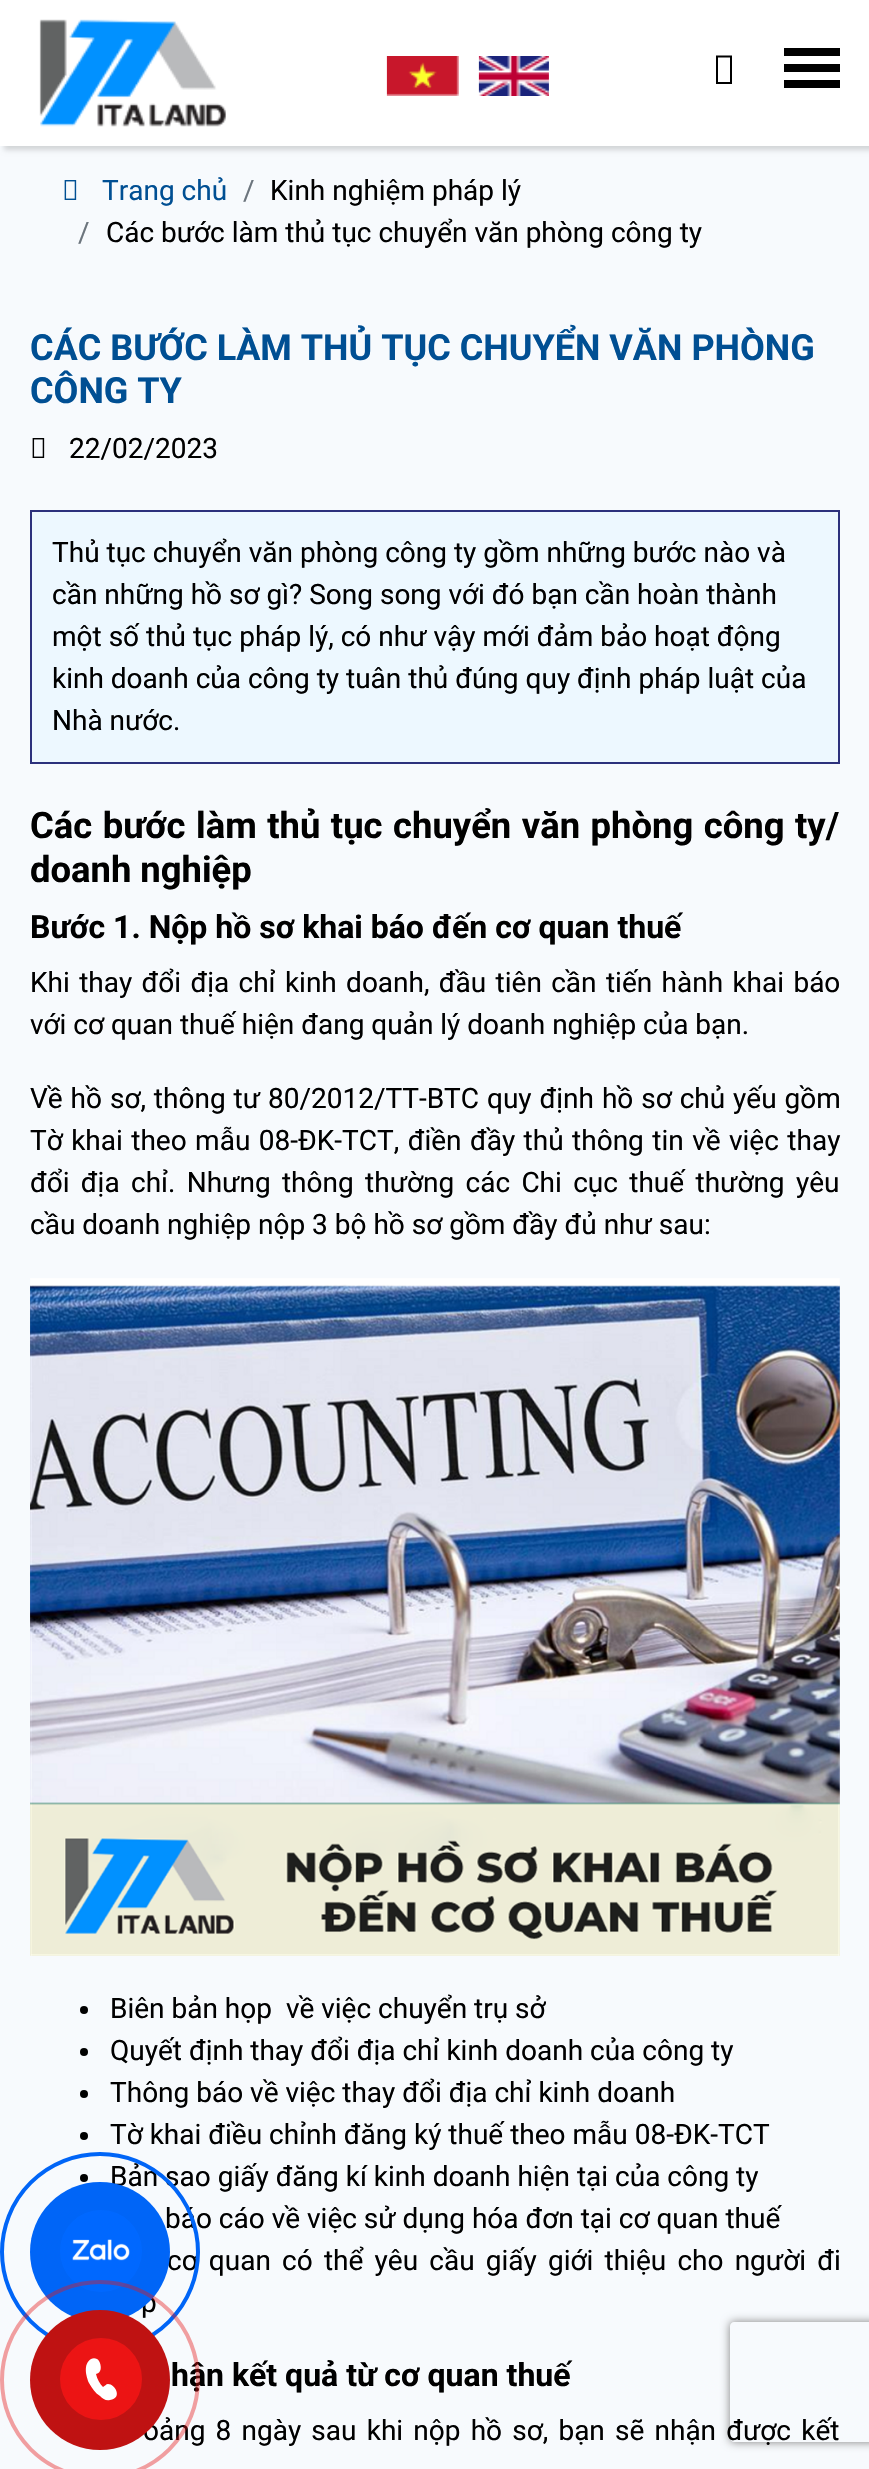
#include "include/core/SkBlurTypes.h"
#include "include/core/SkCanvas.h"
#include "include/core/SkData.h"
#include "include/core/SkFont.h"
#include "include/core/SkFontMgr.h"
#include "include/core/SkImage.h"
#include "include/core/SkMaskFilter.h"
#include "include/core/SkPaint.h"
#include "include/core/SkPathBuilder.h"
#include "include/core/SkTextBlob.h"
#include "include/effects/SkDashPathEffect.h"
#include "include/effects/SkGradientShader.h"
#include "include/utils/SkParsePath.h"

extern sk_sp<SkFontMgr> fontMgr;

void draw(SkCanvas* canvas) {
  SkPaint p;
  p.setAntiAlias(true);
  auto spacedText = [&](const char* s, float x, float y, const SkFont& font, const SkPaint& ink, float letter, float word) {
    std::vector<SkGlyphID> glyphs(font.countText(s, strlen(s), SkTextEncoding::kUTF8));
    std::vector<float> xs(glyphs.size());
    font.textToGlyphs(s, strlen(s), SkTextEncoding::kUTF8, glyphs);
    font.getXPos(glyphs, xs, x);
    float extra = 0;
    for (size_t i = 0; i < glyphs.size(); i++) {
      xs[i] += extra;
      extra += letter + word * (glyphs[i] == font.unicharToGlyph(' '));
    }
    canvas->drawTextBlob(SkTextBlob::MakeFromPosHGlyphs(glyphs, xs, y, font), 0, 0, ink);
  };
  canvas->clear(SkColorSetRGB(247, 250, 253));
  p.setColor(SkColorSetARGB(38, 0, 0, 0));
  p.setMaskFilter(SkMaskFilter::MakeBlur(kNormal_SkBlurStyle, 2.5f));
  canvas->drawRect(SkRect::MakeLTRB(4, 4, 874, 150), p);
  p.setMaskFilter(nullptr);
  p.setColor(SK_ColorWHITE);
  canvas->drawRect(SkRect::MakeLTRB(0, 0, 869, 146), p);
  canvas->drawImageRect(SkImages::DeferredFromEncodedData(SkData::MakeFromFileName("images/1.png")), SkRect::MakeLTRB(39, 19, 226, 127), SkSamplingOptions());
  canvas->drawImageRect(SkImages::DeferredFromEncodedData(SkData::MakeFromFileName("images/2.png")), SkRect::MakeLTRB(386, 56, 459, 96), SkSamplingOptions());
  canvas->drawImageRect(SkImages::DeferredFromEncodedData(SkData::MakeFromFileName("images/3.png")), SkRect::MakeLTRB(478, 56, 549, 96), SkSamplingOptions());
  p.setColor(SK_ColorBLACK);
  canvas->drawPath(SkPathBuilder().moveTo(716, 84).lineTo(716, 55.5f).lineTo(732, 55.5f).lineTo(732, 84).close().moveTo(718, 82).lineTo(730, 82).lineTo(730, 57.5f).lineTo(718, 57.5f).close().detach(), p);
  canvas->drawRect(SkRect::MakeLTRB(784, 48, 840, 56), p);
  canvas->drawRect(SkRect::MakeLTRB(784, 64, 840, 72), p);
  canvas->drawRect(SkRect::MakeLTRB(784, 80, 840, 88), p);
  canvas->drawImageRect(SkImages::DeferredFromEncodedData(SkData::MakeFromFileName("images/4.png")), SkRect::MakeLTRB(64, 180, 77, 200), SkSamplingOptions());
  canvas->drawImageRect(SkImages::DeferredFromEncodedData(SkData::MakeFromFileName("images/5.png")), SkRect::MakeLTRB(32, 438, 45, 458), SkSamplingOptions());
  p.setColor(SkColorSetRGB(237, 248, 255));
  canvas->drawRect(SkRect::MakeLTRB(31, 511, 839, 763), p);
  p.setStyle(SkPaint::kStroke_Style);
  p.setStrokeWidth(2);
  p.setColor(SkColorSetRGB(44, 49, 124));
  canvas->drawRect(SkRect::MakeLTRB(31, 511, 839, 763), p);
  canvas->drawImageRect(SkImages::DeferredFromEncodedData(SkData::MakeFromFileName("images/6.png")), SkRect::MakeLTRB(30, 1278, 840, 1956), SkSamplingOptions());
  p.setStyle(SkPaint::kFill_Style);
  p.setColor(SK_ColorBLACK);
  canvas->drawCircle(84, 2010, 4, p);
  canvas->drawCircle(84, 2052, 4, p);
  canvas->drawCircle(84, 2094, 4, p);
  canvas->drawCircle(84, 2136, 4, p);
  canvas->drawCircle(84, 2178, 4, p);
  canvas->save();
  canvas->clipPath(SkPathBuilder(SkPathFillType::kEvenOdd).moveTo(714, 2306).lineTo(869, 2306).lineTo(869, 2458).lineTo(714, 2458).close().moveTo(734, 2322).lineTo(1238, 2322).cubicTo(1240, 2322, 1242, 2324, 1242, 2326).lineTo(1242, 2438).cubicTo(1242, 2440, 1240, 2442, 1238, 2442).lineTo(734, 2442).cubicTo(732, 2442, 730, 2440, 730, 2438).lineTo(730, 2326).cubicTo(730, 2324, 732, 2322, 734, 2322).close().detach(), true);
  p.setColor(SkColorSetRGB(128, 128, 128));
  p.setMaskFilter(SkMaskFilter::MakeBlur(kNormal_SkBlurStyle, 5));
  canvas->drawRoundRect(SkRect::MakeLTRB(730, 2322, 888, 2442), 4, 4, p);
  p.setMaskFilter(nullptr);
  canvas->restore();
  SkFont font1(fontMgr->matchFamilyStyle("Roboto", SkFontStyle::Normal()), 28);
  font1.setSubpixel(true);
  p.setColor(SkColorSetRGB(0, 79, 147));
  canvas->drawString("Trang chủ", 102, 200, font1, p);
  p.setColor(SkColorSetRGB(108, 117, 125));
  canvas->drawString("/", 243, 200, font1, p);
  p.setColor(SK_ColorBLACK);
  canvas->drawString("Kinh nghiệm pháp lý", 270, 200, font1, p);
  p.setColor(SkColorSetRGB(108, 117, 125));
  canvas->drawString("/", 78, 242, font1, p);
  p.setColor(SK_ColorBLACK);
  canvas->drawString("Các bước làm thủ tục chuyển văn phòng công ty", 106, 242, font1, p);
  SkFont font2(fontMgr->matchFamilyStyle("Roboto", SkFontStyle::Bold()), 36);
  font2.setSubpixel(true);
  p.setColor(SkColorSetRGB(0, 79, 147));
  canvas->drawString("CÁC BƯỚC LÀM THỦ TỤC CHUYỂN VĂN PHÒNG", 30, 360, font2, p);
  canvas->drawString("CÔNG TY", 30, 403, font2, p);
  p.setColor(SK_ColorBLACK);
  canvas->drawString("22/02/2023", 69, 458, font1, p);
  canvas->drawString("Thủ tục chuyển văn phòng công ty gồm những bước nào và", 52, 562, font1, p);
  canvas->drawString("cần những hồ sơ gì? Song song với đó bạn cần hoàn thành", 52, 604, font1, p);
  canvas->drawString("một số thủ tục pháp lý, có như vậy mới đảm bảo hoạt động", 52, 646, font1, p);
  canvas->drawString("kinh doanh của công ty tuân thủ đúng quy định pháp luật của", 52, 688, font1, p);
  canvas->drawString("Nhà nước.", 52, 730, font1, p);
  SkFont font3(fontMgr->matchFamilyStyle("Roboto", SkFontStyle::Bold()), 36.4f);
  font3.setSubpixel(true);
  spacedText("Các bước làm thủ tục chuyển văn phòng công ty/", 30, 838, font3, p, 0, 1.5f);
  canvas->drawString("doanh nghiệp", 30, 882, font3, p);
  SkFont font4(fontMgr->matchFamilyStyle("Roboto", SkFontStyle::Bold()), 32);
  font4.setSubpixel(true);
  canvas->drawString("Bước 1. Nộp hồ sơ khai báo đến cơ quan thuế", 30, 938, font4, p);
  spacedText("Khi thay đổi địa chỉ kinh doanh, đầu tiên cần tiến hành khai báo", 30, 992, font1, p, 0, 2.4f);
  canvas->drawString("với cơ quan thuế hiện đang quản lý doanh nghiệp của bạn.", 30, 1034, font1, p);
  spacedText("Về hồ sơ, thông tư 80/2012/TT-BTC quy định hồ sơ chủ yếu gồm", 30, 1108, font1, p, 0, 1);
  spacedText("Tờ khai theo mẫu 08-ĐK-TCT, điền đầy thủ thông tin về việc thay", 30, 1150, font1, p, 0, 1.5f);
  spacedText("đổi địa chỉ. Nhưng thông thường các Chi cục thuế thường yêu", 30, 1192, font1, p, 0, 4.4f);
  canvas->drawString("cầu doanh nghiệp nộp 3 bộ hồ sơ gồm đầy đủ như sau:", 30, 1234, font1, p);
  canvas->drawString("Biên bản họp  về việc chuyển trụ sở", 110, 2018, font1, p);
  canvas->drawString("Quyết định thay đổi địa chỉ kinh doanh của công ty", 110, 2060, font1, p);
  canvas->drawString("Thông báo về việc thay đổi địa chỉ kinh doanh", 110, 2102, font1, p);
  canvas->drawString("Tờ khai điều chỉnh đăng ký thuế theo mẫu 08-ĐK-TCT", 110, 2144, font1, p);
  canvas->drawString("Bản sao giấy đăng kí kinh doanh hiện tại của công ty", 110, 2186, font1, p);
  canvas->drawString("báo cáo về việc sử dụng hóa đơn tại cơ quan thuế", 165, 2228, font1, p);
  spacedText("cơ quan có thể yêu cầu giấy giới thiệu cho người đi", 167, 2270, font1, p, 0, 4.25f);
  canvas->drawString("p", 141, 2312, font1, p);
  canvas->drawString("hận kết quả từ cơ quan thuế", 171, 2386, font4, p);
  spacedText("oảng 8 ngày sau khi nộp hồ sơ, bạn sẽ nhận được kết", 143, 2440, font1, p, 0, 3.25f);
  p.setStyle(SkPaint::kStroke_Style);
  p.setStrokeWidth(4);
  p.setColor(SkColorSetRGB(0, 101, 247));
  canvas->drawCircle(100, 2252, 98, p);
  p.setStyle(SkPaint::kFill_Style);
  canvas->drawCircle(100, 2252, 70, p);
  canvas->drawImageRect(SkImages::DeferredFromEncodedData(SkData::MakeFromFileName("images/7.png")), SkRect::MakeLTRB(60, 2210, 142, 2292), SkSamplingOptions());
  p.setStyle(SkPaint::kStroke_Style);
  p.setColor(SkColorSetARGB(102, 230, 20, 20));
  canvas->drawCircle(100, 2380, 98, p);
  p.setStyle(SkPaint::kFill_Style);
  p.setColor(SkColorSetRGB(191, 18, 18));
  canvas->drawCircle(100, 2380, 70, p);
  p.setColor(SkColorSetRGB(236, 20, 20));
  canvas->drawCircle(101, 2379, 41, p);
  p.setColor(SK_ColorWHITE);
  canvas->drawPath(SkPathBuilder().moveTo(100, 2396).cubicTo(103, 2399, 106, 2401, 110, 2400).cubicTo(123, 2398, 115, 2384, 108, 2384).cubicTo(106, 2384, 105, 2386, 103, 2387).cubicTo(100, 2384, 97, 2379, 96, 2374).cubicTo(98, 2373, 99, 2373, 100, 2371).cubicTo(102, 2368, 100, 2360, 97, 2359).cubicTo(95, 2358, 93, 2358, 91, 2359).cubicTo(83, 2364, 86, 2376, 89, 2383).cubicTo(92, 2388, 95, 2393, 100, 2396).close().detach(), p);
}
